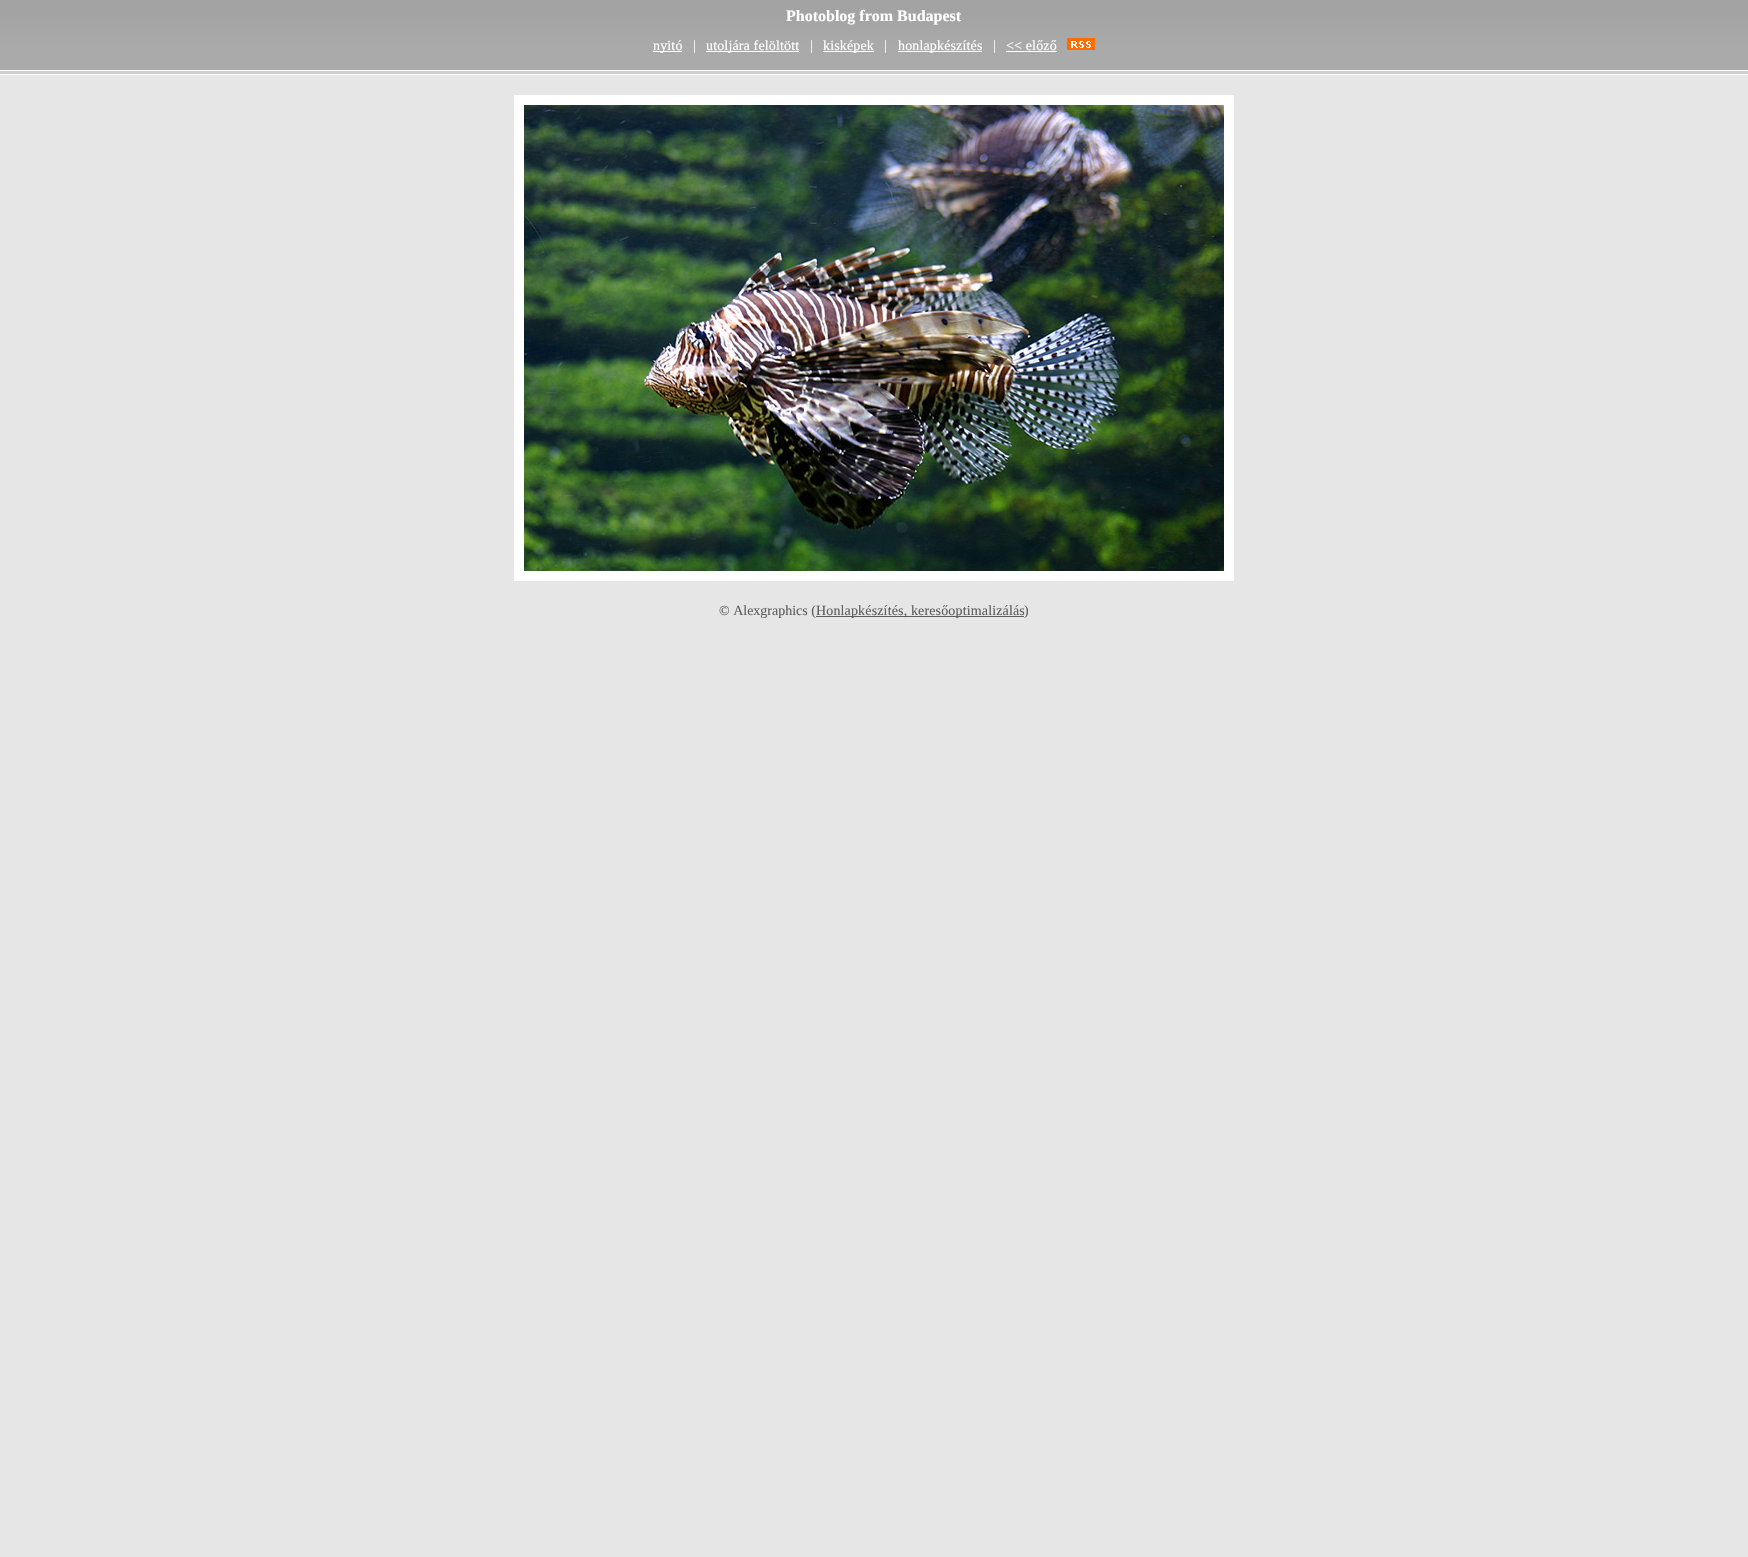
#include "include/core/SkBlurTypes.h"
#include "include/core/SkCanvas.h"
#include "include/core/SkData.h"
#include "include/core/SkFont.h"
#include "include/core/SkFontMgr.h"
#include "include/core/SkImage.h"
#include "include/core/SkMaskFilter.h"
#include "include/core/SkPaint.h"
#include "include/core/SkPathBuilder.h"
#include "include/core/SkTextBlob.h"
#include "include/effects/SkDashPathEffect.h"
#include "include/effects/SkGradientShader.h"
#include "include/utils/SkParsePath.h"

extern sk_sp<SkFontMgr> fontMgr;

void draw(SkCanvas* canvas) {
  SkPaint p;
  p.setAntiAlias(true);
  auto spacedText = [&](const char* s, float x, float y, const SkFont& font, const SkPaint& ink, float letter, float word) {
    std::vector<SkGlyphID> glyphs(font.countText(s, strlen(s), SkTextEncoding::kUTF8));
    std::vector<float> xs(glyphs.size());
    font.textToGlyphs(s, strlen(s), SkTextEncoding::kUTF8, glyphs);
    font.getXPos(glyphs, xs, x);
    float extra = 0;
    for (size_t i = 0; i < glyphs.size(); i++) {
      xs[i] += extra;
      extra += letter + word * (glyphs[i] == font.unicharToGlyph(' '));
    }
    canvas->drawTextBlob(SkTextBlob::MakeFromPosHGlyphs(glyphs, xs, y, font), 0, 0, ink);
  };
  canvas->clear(SkColorSetRGB(230, 230, 230));
  canvas->drawImageRect(SkImages::DeferredFromEncodedData(SkData::MakeFromFileName("images/1.png")), SkRect::MakeLTRB(0, 0, 1748, 75), SkSamplingOptions());
  p.setColor(SK_ColorWHITE);
  canvas->drawRect(SkRect::MakeLTRB(653, 51, 682, 52), p);
  canvas->drawRect(SkRect::MakeLTRB(706, 51, 799, 52), p);
  canvas->drawRect(SkRect::MakeLTRB(823, 51, 874, 52), p);
  canvas->drawRect(SkRect::MakeLTRB(898, 51, 982, 52), p);
  canvas->drawRect(SkRect::MakeLTRB(1006, 51, 1057, 52), p);
  canvas->drawImageRect(SkImages::DeferredFromEncodedData(SkData::MakeFromFileName("images/2.png")), SkRect::MakeLTRB(1067, 38, 1095, 50), SkSamplingOptions());
  p.setStyle(SkPaint::kStroke_Style);
  p.setStrokeWidth(10);
  canvas->drawRect(SkRect::MakeLTRB(519, 100, 1229, 576), p);
  canvas->drawImageRect(SkImages::DeferredFromEncodedData(SkData::MakeFromFileName("images/3.png")), SkRect::MakeLTRB(524, 105, 1224, 571), SkSamplingOptions());
  p.setStyle(SkPaint::kFill_Style);
  p.setColor(SkColorSetRGB(92, 92, 92));
  canvas->drawRect(SkRect::MakeLTRB(816, 616, 1024, 617), p);
  SkFont font1(fontMgr->matchFamilyStyle("Liberation Serif", SkFontStyle::Bold()), 16);
  font1.setSubpixel(true);
  p.setColor(SK_ColorWHITE);
  canvas->drawString("Photoblog from Budapest", 786, 21, font1, p);
  SkFont font2(fontMgr->matchFamilyStyle("Liberation Serif", SkFontStyle::Normal()), 14);
  font2.setSubpixel(true);
  spacedText("nyitó", 653, 50, font2, p, 0.15f, 0);
  canvas->drawString("|", 693, 50, font2, p);
  spacedText("utoljára felöltött", 706, 50, font2, p, 0.15f, 0);
  canvas->drawString("|", 810, 50, font2, p);
  spacedText("kisképek", 823, 50, font2, p, 0.15f, 0);
  canvas->drawString("|", 884, 50, font2, p);
  spacedText("honlapkészítés", 898, 50, font2, p, 0.15f, 0);
  canvas->drawString("|", 993, 50, font2, p);
  spacedText("<< előző", 1006, 50, font2, p, 0.15f, 0);
  p.setColor(SkColorSetRGB(92, 92, 92));
  canvas->drawString("© Alexgraphics (", 719, 615, font2, p);
  spacedText("Honlapkészítés, keresőoptimalizálás", 816, 615, font2, p, 0.15f, 0);
  canvas->drawString(")", 1024, 615, font2, p);
}
